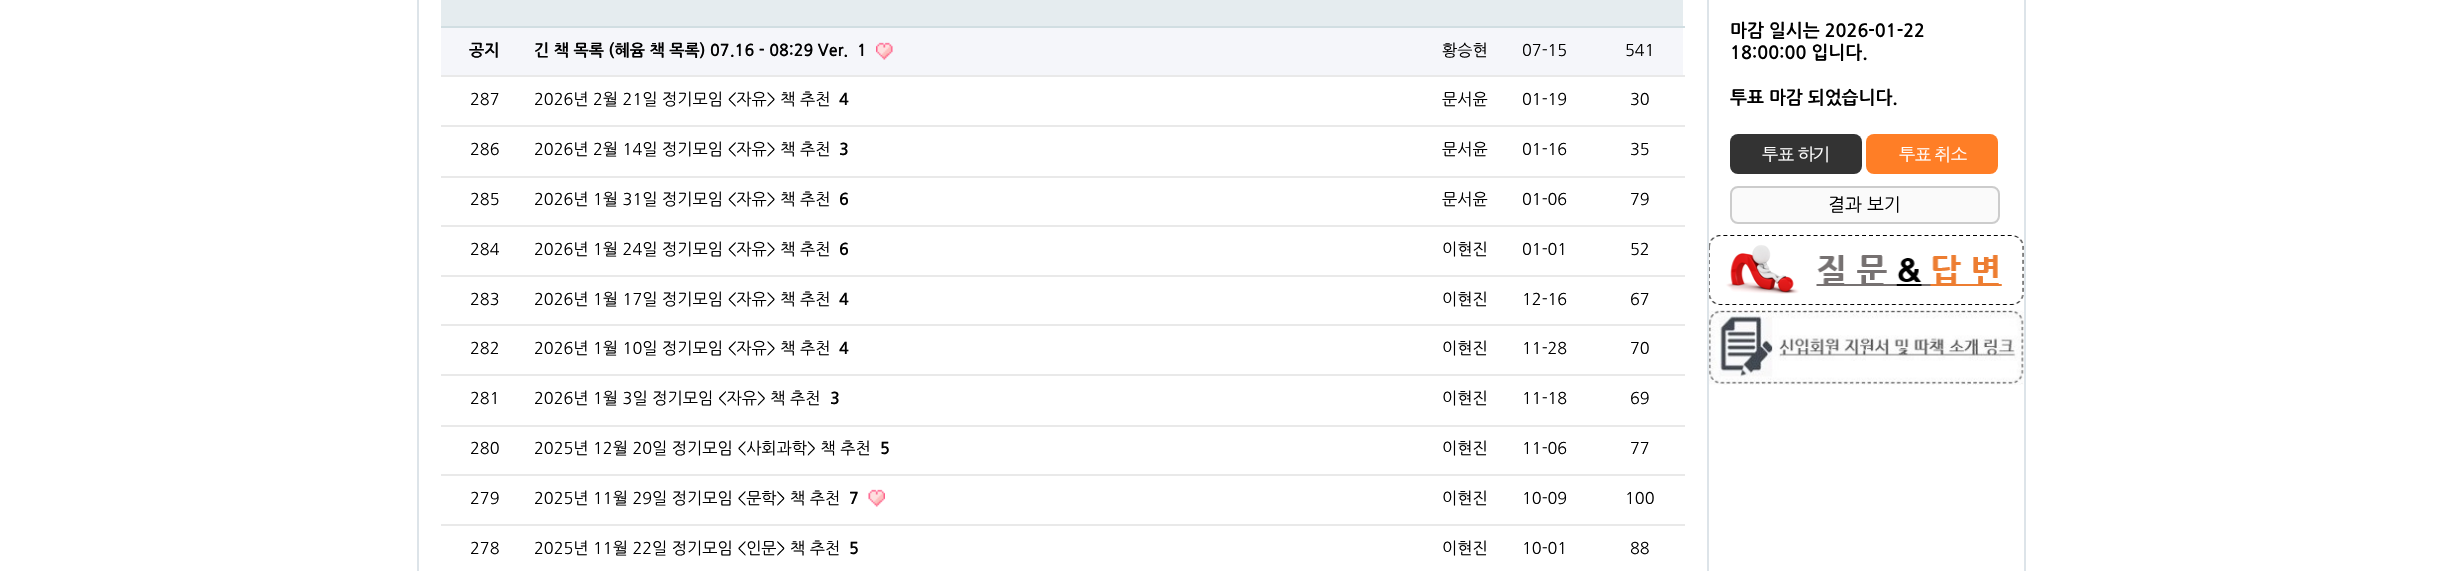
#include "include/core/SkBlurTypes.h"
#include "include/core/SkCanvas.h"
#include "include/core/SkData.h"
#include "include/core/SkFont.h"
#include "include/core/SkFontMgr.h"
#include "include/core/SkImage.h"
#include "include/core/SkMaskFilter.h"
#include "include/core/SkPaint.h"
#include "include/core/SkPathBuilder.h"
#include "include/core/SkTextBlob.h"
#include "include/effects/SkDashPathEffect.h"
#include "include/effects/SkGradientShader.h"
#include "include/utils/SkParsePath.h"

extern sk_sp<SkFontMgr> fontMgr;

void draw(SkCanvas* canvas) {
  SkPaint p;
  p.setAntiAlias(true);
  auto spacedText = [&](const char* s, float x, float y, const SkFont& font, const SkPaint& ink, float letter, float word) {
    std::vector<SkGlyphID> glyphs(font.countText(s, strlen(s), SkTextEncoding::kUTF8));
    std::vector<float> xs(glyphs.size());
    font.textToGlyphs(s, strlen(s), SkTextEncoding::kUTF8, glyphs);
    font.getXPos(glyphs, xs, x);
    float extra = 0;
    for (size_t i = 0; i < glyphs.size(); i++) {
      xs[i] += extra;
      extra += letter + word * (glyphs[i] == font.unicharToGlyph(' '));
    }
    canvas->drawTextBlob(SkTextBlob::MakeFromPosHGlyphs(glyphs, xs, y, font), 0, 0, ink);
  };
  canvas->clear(SK_ColorWHITE);
  p.setColor(SkColorSetRGB(221, 228, 233));
  canvas->drawRect(SkRect::MakeLTRB(2024, 0, 2026, 571), p);
  canvas->drawRect(SkRect::MakeLTRB(417, 0, 419, 571), p);
  canvas->drawRect(SkRect::MakeLTRB(1707, 0, 1709, 571), p);
  p.setColor(SkColorSetRGB(229, 236, 239));
  canvas->drawRect(SkRect::MakeLTRB(441, 0, 1683, 26), p);
  p.setColor(SkColorSetRGB(209, 222, 226));
  canvas->drawRect(SkRect::MakeLTRB(441, 26, 1685, 28), p);
  p.setColor(SkColorSetRGB(245, 246, 250));
  canvas->drawRect(SkRect::MakeLTRB(441, 28, 1683, 75), p);
  canvas->drawImageRect(SkImages::DeferredFromEncodedData(SkData::MakeFromFileName("images/1.png")), SkRect::MakeLTRB(876, 42, 893, 60), SkSamplingOptions());
  p.setColor(SkColorSetRGB(233, 233, 233));
  canvas->drawRect(SkRect::MakeLTRB(441, 75, 1685, 77), p);
  canvas->drawRect(SkRect::MakeLTRB(441, 125, 1685, 127), p);
  canvas->drawRect(SkRect::MakeLTRB(441, 176, 1685, 178), p);
  canvas->drawRect(SkRect::MakeLTRB(441, 225, 1685, 227), p);
  canvas->drawRect(SkRect::MakeLTRB(441, 275, 1685, 277), p);
  canvas->drawRect(SkRect::MakeLTRB(441, 324, 1685, 326), p);
  canvas->drawRect(SkRect::MakeLTRB(441, 374, 1685, 376), p);
  canvas->drawRect(SkRect::MakeLTRB(441, 425, 1685, 427), p);
  canvas->drawImageRect(SkImages::DeferredFromEncodedData(SkData::MakeFromFileName("images/2.png")), SkRect::MakeLTRB(868, 489, 885, 507), SkSamplingOptions());
  canvas->drawRect(SkRect::MakeLTRB(441, 474, 1685, 476), p);
  canvas->drawRect(SkRect::MakeLTRB(441, 524, 1685, 526), p);
  p.setColor(SkColorSetRGB(51, 51, 51));
  canvas->drawRoundRect(SkRect::MakeLTRB(1730, 134, 1862, 174), 8, 8, p);
  p.setColor(SkColorSetRGB(255, 126, 38));
  canvas->drawRoundRect(SkRect::MakeLTRB(1866, 134, 1998, 174), 8, 8, p);
  p.setColor(SkColorSetRGB(250, 250, 250));
  canvas->drawRoundRect(SkRect::MakeLTRB(1731, 187, 1999, 223), 7, 7, p);
  p.setStyle(SkPaint::kStroke_Style);
  p.setStrokeWidth(2);
  p.setColor(SkColorSetRGB(204, 204, 204));
  canvas->drawRoundRect(SkRect::MakeLTRB(1731, 187, 1999, 223), 7, 7, p);
  canvas->drawImageRect(SkImages::DeferredFromEncodedData(SkData::MakeFromFileName("images/3.png")), SkRect::MakeLTRB(1709, 235, 2024, 305), SkSamplingOptions());
  canvas->drawImageRect(SkImages::DeferredFromEncodedData(SkData::MakeFromFileName("images/4.png")), SkRect::MakeLTRB(1709, 310, 2024, 385), SkSamplingOptions());
  SkFont font1(fontMgr->matchFamilyStyle("NanumGothic", SkFontStyle::Bold()), 16.2f);
  font1.setSubpixel(true);
  p.setStyle(SkPaint::kFill_Style);
  p.setColor(SK_ColorBLACK);
  canvas->drawString("공지", 469, 56, font1, p);
  canvas->drawString("긴 책 목록 (혜윰 책 목록) 07.16 - 08:29 Ver.", 534, 56, font1, p);
  canvas->drawString("1", 857, 56, font1, p);
  SkFont font2(fontMgr->matchFamilyStyle("NanumGothic", SkFontStyle::Normal()), 16.2f);
  font2.setSubpixel(true);
  canvas->drawString("황승현", 1442, 56, font2, p);
  canvas->drawString("07-15", 1522, 56, font2, p);
  canvas->drawString("541", 1625, 56, font2, p);
  canvas->drawString("287", 470, 105, font2, p);
  canvas->drawString("2026년 2월 21일 정기모임 <자유> 책 추천", 534, 105, font2, p);
  canvas->drawString("4", 839, 105, font1, p);
  canvas->drawString("문서윤", 1442, 105, font2, p);
  canvas->drawString("01-19", 1522, 105, font2, p);
  canvas->drawString("30", 1630, 105, font2, p);
  canvas->drawString("286", 470, 155, font2, p);
  canvas->drawString("2026년 2월 14일 정기모임 <자유> 책 추천", 534, 155, font2, p);
  canvas->drawString("3", 839, 155, font1, p);
  canvas->drawString("문서윤", 1442, 155, font2, p);
  canvas->drawString("01-16", 1522, 155, font2, p);
  canvas->drawString("35", 1630, 155, font2, p);
  canvas->drawString("285", 470, 205, font2, p);
  canvas->drawString("2026년 1월 31일 정기모임 <자유> 책 추천", 534, 205, font2, p);
  canvas->drawString("6", 839, 205, font1, p);
  canvas->drawString("문서윤", 1442, 205, font2, p);
  canvas->drawString("01-06", 1522, 205, font2, p);
  canvas->drawString("79", 1630, 205, font2, p);
  canvas->drawString("284", 470, 255, font2, p);
  canvas->drawString("2026년 1월 24일 정기모임 <자유> 책 추천", 534, 255, font2, p);
  canvas->drawString("6", 839, 255, font1, p);
  canvas->drawString("이현진", 1442, 255, font2, p);
  canvas->drawString("01-01", 1522, 255, font2, p);
  canvas->drawString("52", 1630, 255, font2, p);
  canvas->drawString("283", 470, 305, font2, p);
  canvas->drawString("2026년 1월 17일 정기모임 <자유> 책 추천", 534, 305, font2, p);
  canvas->drawString("4", 839, 305, font1, p);
  canvas->drawString("이현진", 1442, 305, font2, p);
  canvas->drawString("12-16", 1522, 305, font2, p);
  canvas->drawString("67", 1630, 305, font2, p);
  canvas->drawString("282", 470, 354, font2, p);
  canvas->drawString("2026년 1월 10일 정기모임 <자유> 책 추천", 534, 354, font2, p);
  canvas->drawString("4", 839, 354, font1, p);
  canvas->drawString("이현진", 1442, 354, font2, p);
  canvas->drawString("11-28", 1522, 354, font2, p);
  canvas->drawString("70", 1630, 354, font2, p);
  canvas->drawString("281", 470, 404, font2, p);
  canvas->drawString("2026년 1월 3일 정기모임 <자유> 책 추천", 534, 404, font2, p);
  canvas->drawString("3", 830, 404, font1, p);
  canvas->drawString("이현진", 1442, 404, font2, p);
  canvas->drawString("11-18", 1522, 404, font2, p);
  canvas->drawString("69", 1630, 404, font2, p);
  canvas->drawString("280", 470, 454, font2, p);
  canvas->drawString("2025년 12월 20일 정기모임 <사회과학> 책 추천", 534, 454, font2, p);
  canvas->drawString("5", 880, 454, font1, p);
  canvas->drawString("이현진", 1442, 454, font2, p);
  canvas->drawString("11-06", 1522, 454, font2, p);
  canvas->drawString("77", 1630, 454, font2, p);
  canvas->drawString("279", 470, 504, font2, p);
  canvas->drawString("2025년 11월 29일 정기모임 <문학> 책 추천", 534, 504, font2, p);
  canvas->drawString("7", 849, 504, font1, p);
  canvas->drawString("이현진", 1442, 504, font2, p);
  canvas->drawString("10-09", 1522, 504, font2, p);
  canvas->drawString("100", 1625, 504, font2, p);
  canvas->drawString("278", 470, 554, font2, p);
  canvas->drawString("2025년 11월 22일 정기모임 <인문> 책 추천", 534, 554, font2, p);
  canvas->drawString("5", 849, 554, font1, p);
  canvas->drawString("이현진", 1442, 554, font2, p);
  canvas->drawString("10-01", 1522, 554, font2, p);
  canvas->drawString("88", 1630, 554, font2, p);
  SkFont font3(fontMgr->matchFamilyStyle("NanumGothic", SkFontStyle::Bold()), 18);
  font3.setSubpixel(true);
  canvas->drawString("마감 일시는 2026-01-22", 1730, 37, font3, p);
  canvas->drawString("18:00:00 입니다.", 1730, 59, font3, p);
  canvas->drawString("투표 마감 되었습니다.", 1730, 104, font3, p);
  SkFont font4(fontMgr->matchFamilyStyle("Dotum", SkFontStyle::Normal()), 18);
  font4.setSubpixel(true);
  p.setColor(SK_ColorWHITE);
  spacedText("투표 하기", 1761, 161, font4, p, -2, 0);
  spacedText("투표 취소", 1898, 161, font4, p, -2, 0);
  SkFont font5(fontMgr->matchFamilyStyle("NanumGothic", SkFontStyle::Normal()), 18);
  font5.setSubpixel(true);
  p.setColor(SK_ColorBLACK);
  canvas->drawString("결과 보기", 1828, 211, font5, p);
}
